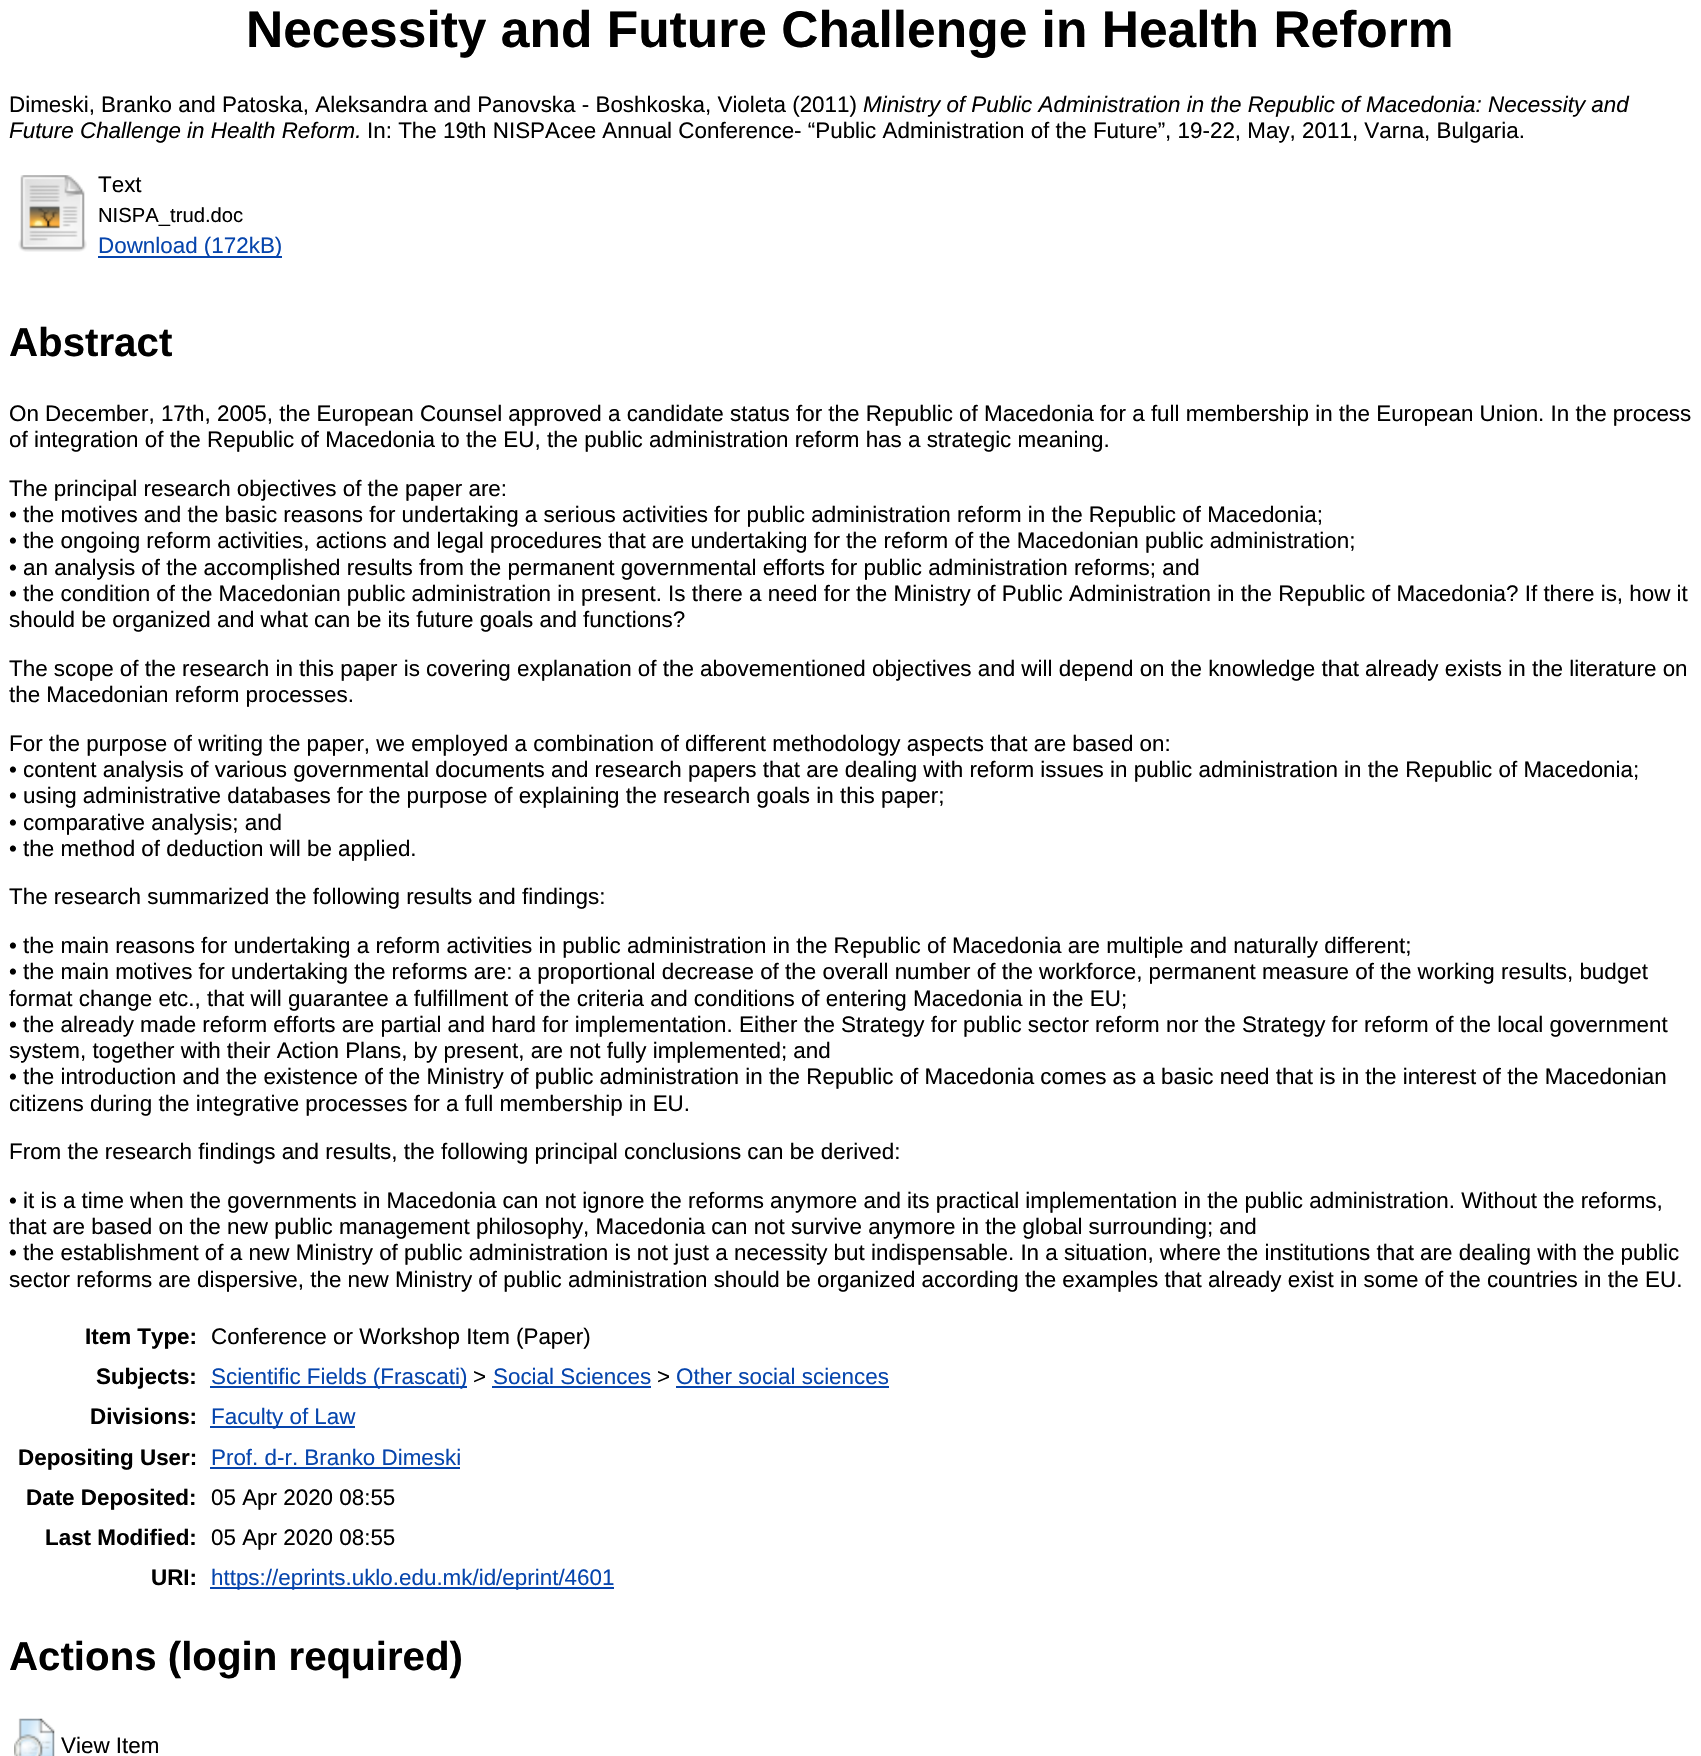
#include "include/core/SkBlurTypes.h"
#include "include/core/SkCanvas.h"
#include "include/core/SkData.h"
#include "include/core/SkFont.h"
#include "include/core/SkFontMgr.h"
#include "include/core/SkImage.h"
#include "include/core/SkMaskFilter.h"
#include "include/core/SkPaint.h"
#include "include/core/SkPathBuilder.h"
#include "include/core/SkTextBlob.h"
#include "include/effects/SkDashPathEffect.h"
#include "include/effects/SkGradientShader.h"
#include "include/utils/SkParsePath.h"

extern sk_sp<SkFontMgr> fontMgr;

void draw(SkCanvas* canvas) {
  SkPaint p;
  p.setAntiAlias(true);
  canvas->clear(SK_ColorWHITE);
  canvas->drawImageRect(SkImages::DeferredFromEncodedData(SkData::MakeFromFileName("images/1.png")), SkRect::MakeLTRB(18, 175, 87, 252), SkSamplingOptions());
  p.setColor(SkColorSetRGB(6, 69, 173));
  canvas->drawRect(SkRect::MakeLTRB(98, 256, 282, 258), p);
  canvas->drawRect(SkRect::MakeLTRB(210, 1386, 467, 1388), p);
  canvas->drawRect(SkRect::MakeLTRB(492, 1386, 651, 1388), p);
  canvas->drawRect(SkRect::MakeLTRB(676, 1386, 889, 1388), p);
  canvas->drawRect(SkRect::MakeLTRB(210, 1426, 355, 1428), p);
  canvas->drawRect(SkRect::MakeLTRB(210, 1467, 460, 1469), p);
  canvas->drawRect(SkRect::MakeLTRB(210, 1587, 614, 1589), p);
  canvas->drawImageRect(SkImages::DeferredFromEncodedData(SkData::MakeFromFileName("images/2.png")), SkRect::MakeLTRB(14, 1718, 55, 1756), SkSamplingOptions());
  SkFont font1(fontMgr->matchFamilyStyle("Liberation Sans", SkFontStyle::Bold()), 51.5f);
  font1.setSubpixel(true);
  p.setColor(SK_ColorBLACK);
  canvas->drawString("Necessity and Future Challenge in Health Reform", 246, 47, font1, p);
  SkFont font2(fontMgr->matchFamilyStyle("Liberation Sans", SkFontStyle::Normal()), 22.4f);
  font2.setSubpixel(true);
  canvas->drawString("Dimeski, Branko and Patoska, Aleksandra and Panovska - Boshkoska, Violeta (2011)", 9, 112, font2, p);
  SkFont font3(fontMgr->matchFamilyStyle("Liberation Sans", SkFontStyle::Italic()), 22.4f);
  font3.setSubpixel(true);
  canvas->drawString("Ministry of Public Administration in the Republic of Macedonia: Necessity and", 863, 112, font3, p);
  canvas->drawString("Future Challenge in Health Reform.", 9, 138, font3, p);
  canvas->drawString("In: The 19th NISPAcee Annual Conference- “Public Administration of the Future”, 19-22, May, 2011, Varna, Bulgaria.", 367, 138, font2, p);
  canvas->drawString("Text", 98, 192, font2, p);
  SkFont font4(fontMgr->matchFamilyStyle("Liberation Sans", SkFontStyle::Normal()), 20.25f);
  font4.setSubpixel(true);
  canvas->drawString("NISPA_trud.doc", 98, 222, font4, p);
  p.setColor(SkColorSetRGB(6, 69, 173));
  canvas->drawString("Download (172kB)", 98, 253, font2, p);
  SkFont font5(fontMgr->matchFamilyStyle("Liberation Sans", SkFontStyle::Bold()), 40.25f);
  font5.setSubpixel(true);
  p.setColor(SK_ColorBLACK);
  canvas->drawString("Abstract", 9, 356, font5, p);
  canvas->drawString("On December, 17th, 2005, the European Counsel approved a candidate status for the Republic of Macedonia for a full membership in the European Union. In the process", 9, 421, font2, p);
  canvas->drawString("of integration of the Republic of Macedonia to the EU, the public administration reform has a strategic meaning.", 9, 447, font2, p);
  canvas->drawString("The principal research objectives of the paper are:", 9, 496, font2, p);
  canvas->drawString("• the motives and the basic reasons for undertaking a serious activities for public administration reform in the Republic of Macedonia;", 9, 522, font2, p);
  canvas->drawString("• the ongoing reform activities, actions and legal procedures that are undertaking for the reform of the Macedonian public administration;", 9, 548, font2, p);
  canvas->drawString("• an analysis of the accomplished results from the permanent governmental efforts for public administration reforms; and", 9, 575, font2, p);
  canvas->drawString("• the condition of the Macedonian public administration in present. Is there a need for the Ministry of Public Administration in the Republic of Macedonia? If there is, how it", 9, 601, font2, p);
  canvas->drawString("should be organized and what can be its future goals and functions?", 9, 627, font2, p);
  canvas->drawString("The scope of the research in this paper is covering explanation of the abovementioned objectives and will depend on the knowledge that already exists in the literature on", 9, 676, font2, p);
  canvas->drawString("the Macedonian reform processes.", 9, 702, font2, p);
  canvas->drawString("For the purpose of writing the paper, we employed a combination of different methodology aspects that are based on:", 9, 751, font2, p);
  canvas->drawString("• content analysis of various governmental documents and research papers that are dealing with reform issues in public administration in the Republic of Macedonia;", 9, 777, font2, p);
  canvas->drawString("• using administrative databases for the purpose of explaining the research goals in this paper;", 9, 803, font2, p);
  canvas->drawString("• comparative analysis; and", 9, 830, font2, p);
  canvas->drawString("• the method of deduction will be applied.", 9, 856, font2, p);
  canvas->drawString("The research summarized the following results and findings:", 9, 904, font2, p);
  canvas->drawString("• the main reasons for undertaking a reform activities in public administration in the Republic of Macedonia are multiple and naturally different;", 9, 953, font2, p);
  canvas->drawString("• the main motives for undertaking the reforms are: a proportional decrease of the overall number of the workforce, permanent measure of the working results, budget", 9, 979, font2, p);
  canvas->drawString("format change etc., that will guarantee a fulfillment of the criteria and conditions of entering Macedonia in the EU;", 9, 1006, font2, p);
  canvas->drawString("• the already made reform efforts are partial and hard for implementation. Either the Strategy for public sector reform nor the Strategy for reform of the local government", 9, 1032, font2, p);
  canvas->drawString("system, together with their Action Plans, by present, are not fully implemented; and", 9, 1058, font2, p);
  canvas->drawString("• the introduction and the existence of the Ministry of public administration in the Republic of Macedonia comes as a basic need that is in the interest of the Macedonian", 9, 1084, font2, p);
  canvas->drawString("citizens during the integrative processes for a full membership in EU.", 9, 1111, font2, p);
  canvas->drawString("From the research findings and results, the following principal conclusions can be derived:", 9, 1159, font2, p);
  canvas->drawString("• it is a time when the governments in Macedonia can not ignore the reforms anymore and its practical implementation in the public administration. Without the reforms,", 9, 1208, font2, p);
  canvas->drawString("that are based on the new public management philosophy, Macedonia can not survive anymore in the global surrounding; and", 9, 1234, font2, p);
  canvas->drawString("• the establishment of a new Ministry of public administration is not just a necessity but indispensable. In a situation, where the institutions that are dealing with the public", 9, 1260, font2, p);
  canvas->drawString("sector reforms are dispersive, the new Ministry of public administration should be organized according the examples that already exist in some of the countries in the EU.", 9, 1287, font2, p);
  SkFont font6(fontMgr->matchFamilyStyle("Liberation Sans", SkFontStyle::Bold()), 22.4f);
  font6.setSubpixel(true);
  canvas->drawString("Item Type:", 85, 1344, font6, p);
  canvas->drawString("Conference or Workshop Item (Paper)", 211, 1344, font2, p);
  canvas->drawString("Subjects:", 96, 1384, font6, p);
  p.setColor(SkColorSetRGB(6, 69, 173));
  canvas->drawString("Scientific Fields (Frascati)", 211, 1384, font2, p);
  p.setColor(SK_ColorBLACK);
  canvas->drawString(">", 473, 1384, font2, p);
  p.setColor(SkColorSetRGB(6, 69, 173));
  canvas->drawString("Social Sciences", 493, 1384, font2, p);
  p.setColor(SK_ColorBLACK);
  canvas->drawString(">", 657, 1384, font2, p);
  p.setColor(SkColorSetRGB(6, 69, 173));
  canvas->drawString("Other social sciences", 676, 1384, font2, p);
  p.setColor(SK_ColorBLACK);
  canvas->drawString("Divisions:", 90, 1424, font6, p);
  p.setColor(SkColorSetRGB(6, 69, 173));
  canvas->drawString("Faculty of Law", 211, 1424, font2, p);
  p.setColor(SK_ColorBLACK);
  canvas->drawString("Depositing User:", 18, 1465, font6, p);
  p.setColor(SkColorSetRGB(6, 69, 173));
  canvas->drawString("Prof. d-r. Branko Dimeski", 211, 1465, font2, p);
  p.setColor(SK_ColorBLACK);
  canvas->drawString("Date Deposited:", 26, 1505, font6, p);
  canvas->drawString("05 Apr 2020 08:55", 211, 1505, font2, p);
  canvas->drawString("Last Modified:", 45, 1545, font6, p);
  canvas->drawString("05 Apr 2020 08:55", 211, 1545, font2, p);
  canvas->drawString("URI:", 151, 1585, font6, p);
  p.setColor(SkColorSetRGB(6, 69, 173));
  canvas->drawString("https://eprints.uklo.edu.mk/id/eprint/4601", 211, 1585, font2, p);
  p.setColor(SK_ColorBLACK);
  canvas->drawString("Actions (login required)", 9, 1670, font5, p);
  canvas->drawString("View Item", 61, 1753, font2, p);
}
